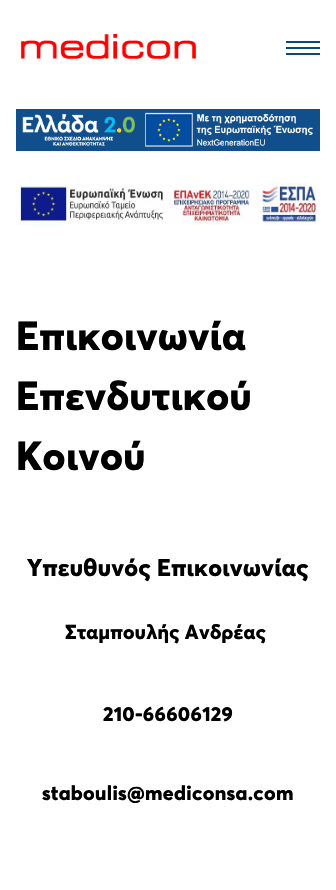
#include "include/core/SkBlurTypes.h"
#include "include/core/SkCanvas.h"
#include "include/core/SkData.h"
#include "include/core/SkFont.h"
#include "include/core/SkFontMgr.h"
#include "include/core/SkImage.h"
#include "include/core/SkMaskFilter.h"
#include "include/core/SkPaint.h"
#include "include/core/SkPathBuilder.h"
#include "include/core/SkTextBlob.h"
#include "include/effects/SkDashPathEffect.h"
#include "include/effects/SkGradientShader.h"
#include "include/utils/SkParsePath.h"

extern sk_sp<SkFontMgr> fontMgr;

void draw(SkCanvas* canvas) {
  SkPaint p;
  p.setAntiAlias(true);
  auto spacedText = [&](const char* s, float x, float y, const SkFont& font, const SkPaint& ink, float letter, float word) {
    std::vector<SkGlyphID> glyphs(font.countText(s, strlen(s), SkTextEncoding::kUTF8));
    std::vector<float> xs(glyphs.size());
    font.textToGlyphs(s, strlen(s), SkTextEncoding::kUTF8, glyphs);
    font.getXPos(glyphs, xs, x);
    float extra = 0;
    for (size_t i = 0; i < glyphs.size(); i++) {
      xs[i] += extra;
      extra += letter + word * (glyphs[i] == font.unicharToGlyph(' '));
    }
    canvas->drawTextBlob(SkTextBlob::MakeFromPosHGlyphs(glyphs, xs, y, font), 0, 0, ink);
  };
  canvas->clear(SK_ColorWHITE);
  canvas->drawImageRect(SkImages::DeferredFromEncodedData(SkData::MakeFromFileName("images/1.png")), SkRect::MakeLTRB(20, 34, 197, 59), SkSamplingOptions());
  p.setColor(SkColorSetRGB(8, 74, 117));
  canvas->drawRect(SkRect::MakeLTRB(286, 41, 320, 43), p);
  canvas->drawRect(SkRect::MakeLTRB(286, 47, 320, 49), p);
  canvas->drawRect(SkRect::MakeLTRB(286, 53, 320, 55), p);
  p.setColor(SkColorSetRGB(16, 78, 140));
  canvas->drawRect(SkRect::MakeLTRB(16, 109, 320, 151), p);
  canvas->drawImageRect(SkImages::DeferredFromEncodedData(SkData::MakeFromFileName("images/2.png")), SkRect::MakeLTRB(22, 112, 313, 147), SkSamplingOptions());
  canvas->drawImageRect(SkImages::DeferredFromEncodedData(SkData::MakeFromFileName("images/3.png")), SkRect::MakeLTRB(16, 183, 317, 225), SkSamplingOptions());
  SkFont font1(fontMgr->matchFamilyStyle("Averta", SkFontStyle(800, SkFontStyle::kNormal_Width, SkFontStyle::kUpright_Slant)), 40);
  font1.setSubpixel(true);
  p.setColor(SK_ColorBLACK);
  spacedText("Επικοινωνία", 16, 350, font1, p, 0.3f, 0);
  spacedText("Επενδυτικού", 16, 410, font1, p, 0.3f, 0);
  spacedText("Κοινού", 16, 470, font1, p, 0.3f, 0);
  SkFont font2(fontMgr->matchFamilyStyle("Averta", SkFontStyle(800, SkFontStyle::kNormal_Width, SkFontStyle::kUpright_Slant)), 24);
  font2.setSubpixel(true);
  spacedText("Υπευθυνός Επικοινωνίας", 27, 576, font2, p, 0.3f, 0);
  SkFont font3(fontMgr->matchFamilyStyle("Averta", SkFontStyle(800, SkFontStyle::kNormal_Width, SkFontStyle::kUpright_Slant)), 20);
  font3.setSubpixel(true);
  spacedText("Σταμπουλής Ανδρέας", 65, 639, font3, p, 0.3f, 0);
  spacedText("210-66606129", 103, 721, font3, p, 0.3f, 0);
  spacedText("staboulis@mediconsa.com", 42, 800, font3, p, 0.3f, 0);
}
